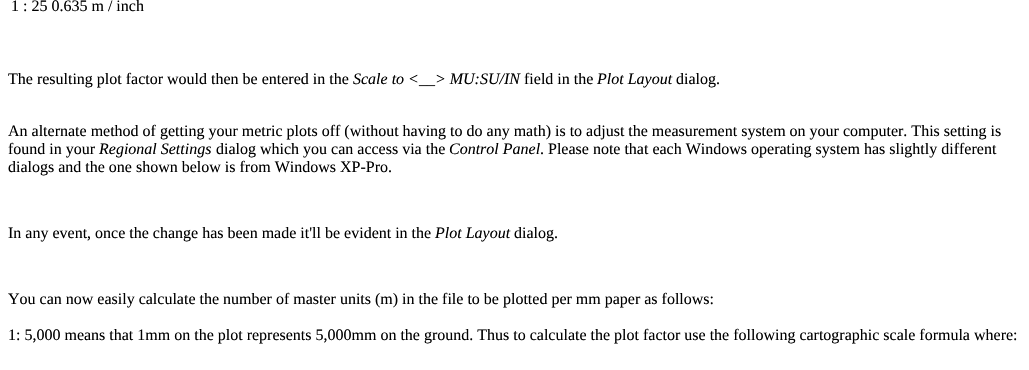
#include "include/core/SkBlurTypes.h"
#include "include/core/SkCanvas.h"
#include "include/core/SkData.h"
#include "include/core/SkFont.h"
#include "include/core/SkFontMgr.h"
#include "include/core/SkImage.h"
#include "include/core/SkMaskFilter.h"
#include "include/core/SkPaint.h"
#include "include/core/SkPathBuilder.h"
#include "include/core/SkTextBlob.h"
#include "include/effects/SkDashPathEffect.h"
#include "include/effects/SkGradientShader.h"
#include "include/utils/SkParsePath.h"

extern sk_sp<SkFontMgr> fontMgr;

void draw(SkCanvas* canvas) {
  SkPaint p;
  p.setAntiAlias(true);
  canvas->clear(SK_ColorWHITE);
  SkFont font1(fontMgr->matchFamilyStyle("Liberation Serif", SkFontStyle::Normal()), 16);
  font1.setSubpixel(true);
  p.setColor(SK_ColorBLACK);
  canvas->drawString("1 : 25 0.635 m / inch", 11, 11, font1, p);
  canvas->drawString("The resulting plot factor would then be entered in the", 8, 84, font1, p);
  SkFont font2(fontMgr->matchFamilyStyle("Liberation Serif", SkFontStyle::Italic()), 16);
  font2.setSubpixel(true);
  canvas->drawString("Scale to <__> MU:SU/IN", 353, 84, font2, p);
  canvas->drawString("field in the", 524, 84, font1, p);
  canvas->drawString("Plot Layout", 597, 84, font2, p);
  canvas->drawString("dialog.", 676, 84, font1, p);
  canvas->drawString("An alternate method of getting your metric plots off (without having to do any math) is to adjust the measurement system on your computer. This setting is", 8, 136, font1, p);
  canvas->drawString("found in your", 8, 154, font1, p);
  canvas->drawString("Regional Settings", 99, 154, font2, p);
  canvas->drawString("dialog which you can access via the", 216, 154, font1, p);
  canvas->drawString("Control Panel", 449, 154, font2, p);
  canvas->drawString(". Please note that each Windows operating system has slightly different", 540, 154, font1, p);
  canvas->drawString("dialogs and the one shown below is from Windows XP-Pro.", 8, 172, font1, p);
  canvas->drawString("In any event, once the change has been made it'll be evident in the", 8, 238, font1, p);
  canvas->drawString("Plot Layout", 435, 238, font2, p);
  canvas->drawString("dialog.", 514, 238, font1, p);
  canvas->drawString("You can now easily calculate the number of master units (m) in the file to be plotted per mm paper as follows:", 8, 304, font1, p);
  canvas->drawString("1: 5,000 means that 1mm on the plot represents 5,000mm on the ground. Thus to calculate the plot factor use the following cartographic scale formula where:", 8, 340, font1, p);
}
